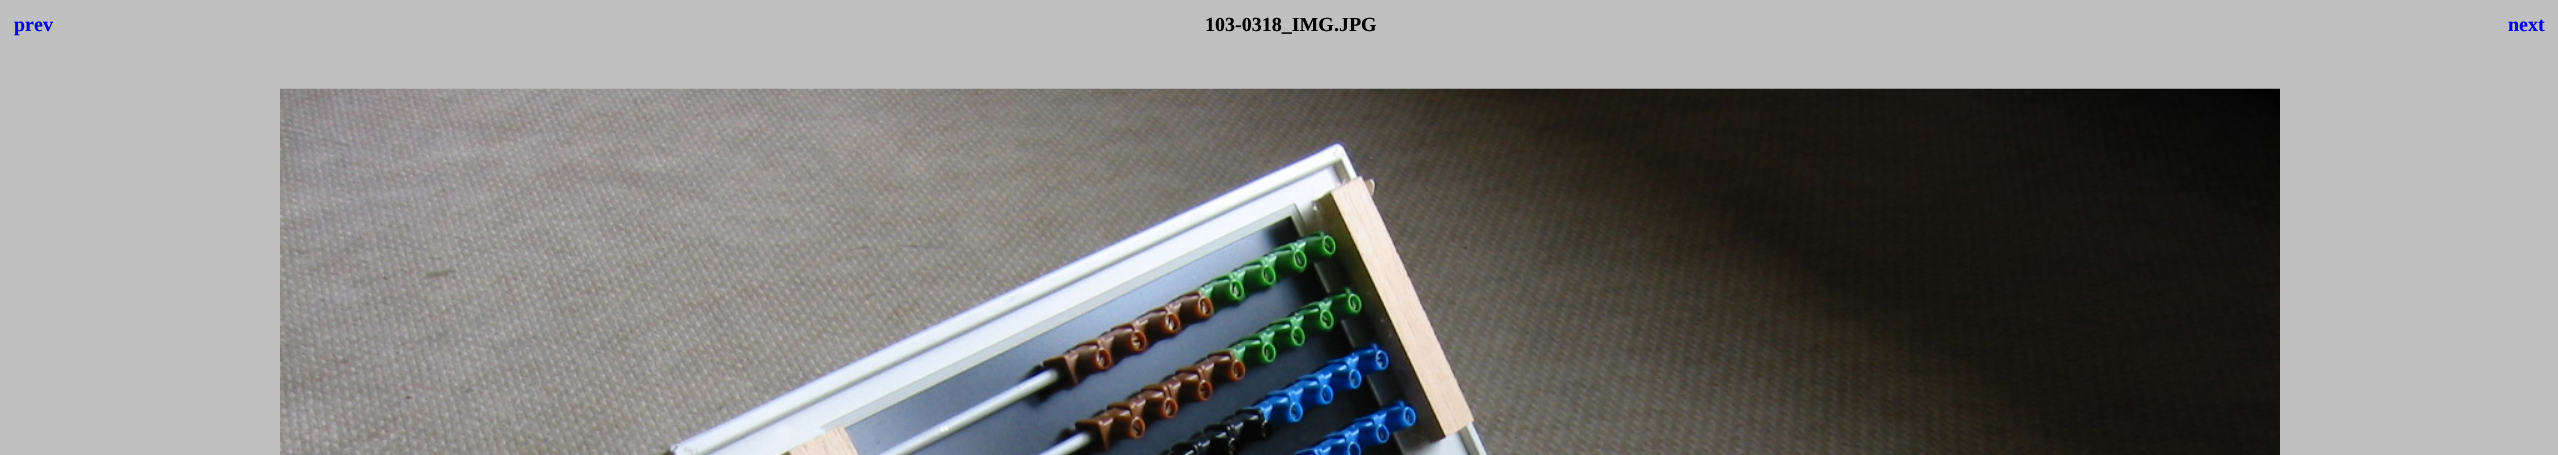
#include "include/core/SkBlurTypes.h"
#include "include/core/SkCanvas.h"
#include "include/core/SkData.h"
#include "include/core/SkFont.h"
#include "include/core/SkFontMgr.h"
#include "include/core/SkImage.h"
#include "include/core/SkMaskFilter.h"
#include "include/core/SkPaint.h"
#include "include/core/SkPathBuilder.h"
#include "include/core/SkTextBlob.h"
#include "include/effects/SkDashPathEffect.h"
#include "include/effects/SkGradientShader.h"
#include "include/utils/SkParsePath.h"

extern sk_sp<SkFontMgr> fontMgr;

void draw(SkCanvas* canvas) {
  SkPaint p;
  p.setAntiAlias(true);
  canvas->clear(SkColorSetRGB(192, 192, 192));
  canvas->drawImageRect(SkImages::DeferredFromEncodedData(SkData::MakeFromFileName("images/1.png")), SkRect::MakeLTRB(280, 88, 2280, 455), SkSamplingOptions());
  SkFont font1(fontMgr->matchFamilyStyle("Liberation Serif", SkFontStyle::Bold()), 20);
  font1.setSubpixel(true);
  p.setColor(SkColorSetRGB(0, 0, 238));
  canvas->drawString("prev", 14, 31, font1, p);
  p.setColor(SK_ColorBLACK);
  canvas->drawString("103-0318_IMG.JPG", 1205, 31, font1, p);
  p.setColor(SkColorSetRGB(0, 0, 238));
  canvas->drawString("next", 2508, 31, font1, p);
}
